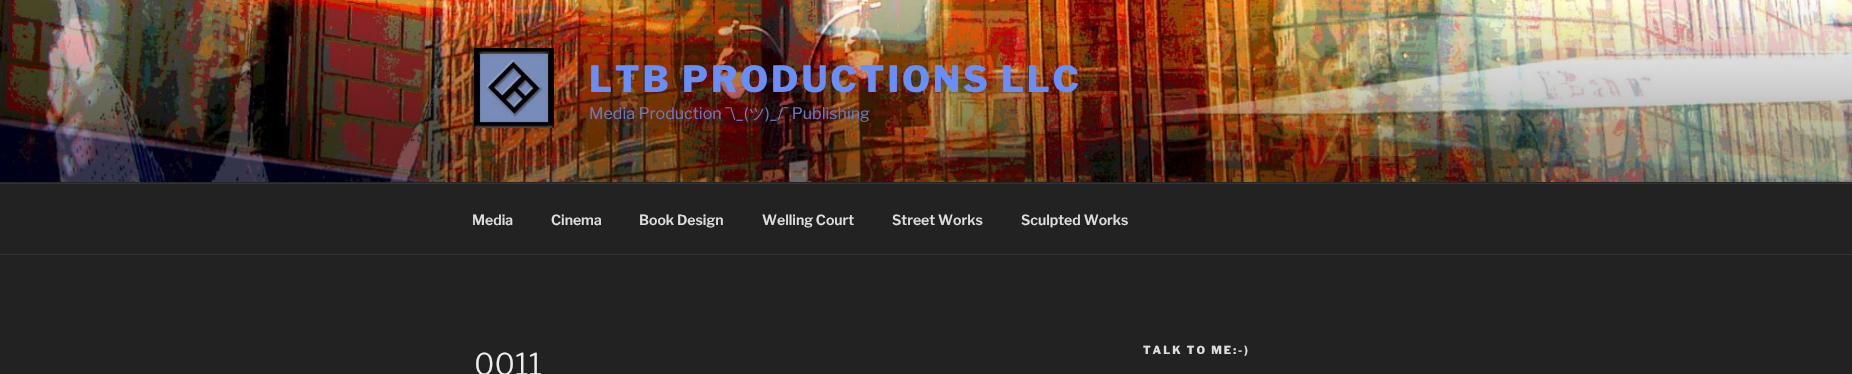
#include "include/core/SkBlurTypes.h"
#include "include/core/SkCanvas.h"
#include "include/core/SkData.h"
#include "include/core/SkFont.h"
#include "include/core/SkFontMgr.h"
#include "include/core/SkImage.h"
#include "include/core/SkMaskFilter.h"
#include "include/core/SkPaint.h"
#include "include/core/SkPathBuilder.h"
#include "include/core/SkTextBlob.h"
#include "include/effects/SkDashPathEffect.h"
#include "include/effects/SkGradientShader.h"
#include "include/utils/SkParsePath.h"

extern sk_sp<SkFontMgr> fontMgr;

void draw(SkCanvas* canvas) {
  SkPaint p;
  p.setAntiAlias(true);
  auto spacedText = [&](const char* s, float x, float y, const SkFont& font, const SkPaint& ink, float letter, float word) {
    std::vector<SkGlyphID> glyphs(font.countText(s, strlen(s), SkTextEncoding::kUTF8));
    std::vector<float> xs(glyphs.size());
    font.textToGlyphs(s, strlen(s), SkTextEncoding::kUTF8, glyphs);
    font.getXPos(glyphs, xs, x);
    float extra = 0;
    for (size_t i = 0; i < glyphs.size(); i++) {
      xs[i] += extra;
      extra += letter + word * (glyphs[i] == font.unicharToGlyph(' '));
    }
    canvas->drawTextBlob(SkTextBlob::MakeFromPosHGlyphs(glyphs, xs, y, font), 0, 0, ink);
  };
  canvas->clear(SkColorSetRGB(34, 34, 34));
  p.setColor(SkColorSetRGB(38, 38, 38));
  canvas->drawRect(SkRect::MakeLTRB(0, 182, 1852, 183), p);
  canvas->drawImageRect(SkImages::DeferredFromEncodedData(SkData::MakeFromFileName("images/1.png")), SkRect::MakeLTRB(0, 0, 1852, 182), SkSamplingOptions());
  canvas->drawImageRect(SkImages::DeferredFromEncodedData(SkData::MakeFromFileName("images/2.png")), SkRect::MakeLTRB(474, 48, 554, 128), SkSamplingOptions());
  p.setColor(SkColorSetRGB(51, 51, 51));
  canvas->drawRect(SkRect::MakeLTRB(0, 183, 1852, 184), p);
  canvas->drawRect(SkRect::MakeLTRB(0, 254, 1852, 255), p);
  SkFont font1(fontMgr->matchFamilyStyle("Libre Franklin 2", SkFontStyle(100, SkFontStyle::kNormal_Width, SkFontStyle::kUpright_Slant)), 36);
  font1.setSubpixel(true);
  p.setColor(SkColorSetRGB(103, 143, 252));
  spacedText("LTB PRODUCTIONS LLC", 589, 92, font1, p, 2.9f, 0);
  SkFont font2(fontMgr->matchFamilyStyle("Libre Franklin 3", SkFontStyle(100, SkFontStyle::kNormal_Width, SkFontStyle::kUpright_Slant)), 16);
  font2.setSubpixel(true);
  p.setColor(SkColorSetRGB(102, 121, 203));
  canvas->drawString("Media Production ¯\\_(", 589, 119, font2, p);
  SkFont font3(fontMgr->matchFamilyStyle("WenQuanYi Zen Hei", SkFontStyle(500, SkFontStyle::kNormal_Width, SkFontStyle::kUpright_Slant)), 16);
  font3.setSubpixel(true);
  canvas->drawString("ツ", 749, 119, font3, p);
  p.setColor(SkColorSetRGB(96, 120, 204));
  canvas->drawString(")_/¯ Publishing", 765, 119, font2, p);
  SkFont font4(fontMgr->matchFamilyStyle("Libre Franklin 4", SkFontStyle(100, SkFontStyle::kNormal_Width, SkFontStyle::kUpright_Slant)), 14);
  font4.setSubpixel(true);
  p.setColor(SkColorSetRGB(221, 221, 221));
  canvas->drawString("Media", 472, 225, font4, p);
  canvas->drawString("Cinema", 551, 225, font4, p);
  canvas->drawString("Book Design", 639, 225, font4, p);
  canvas->drawString("Welling Court", 762, 225, font4, p);
  canvas->drawString("Street Works", 892, 225, font4, p);
  canvas->drawString("Sculpted Works", 1021, 225, font4, p);
  SkFont font5(fontMgr->matchFamilyStyle("Libre Franklin 2", SkFontStyle(100, SkFontStyle::kNormal_Width, SkFontStyle::kUpright_Slant)), 11);
  font5.setSubpixel(true);
  spacedText("TALK TO ME:-)", 1143, 354, font5, p, 2, 0);
  SkFont font6(fontMgr->matchFamilyStyle("Libre Franklin", SkFontStyle(100, SkFontStyle::kNormal_Width, SkFontStyle::kUpright_Slant)), 30);
  font6.setSubpixel(true);
  p.setColor(SkColorSetRGB(238, 238, 238));
  canvas->drawString("0011", 474, 375, font6, p);
}
